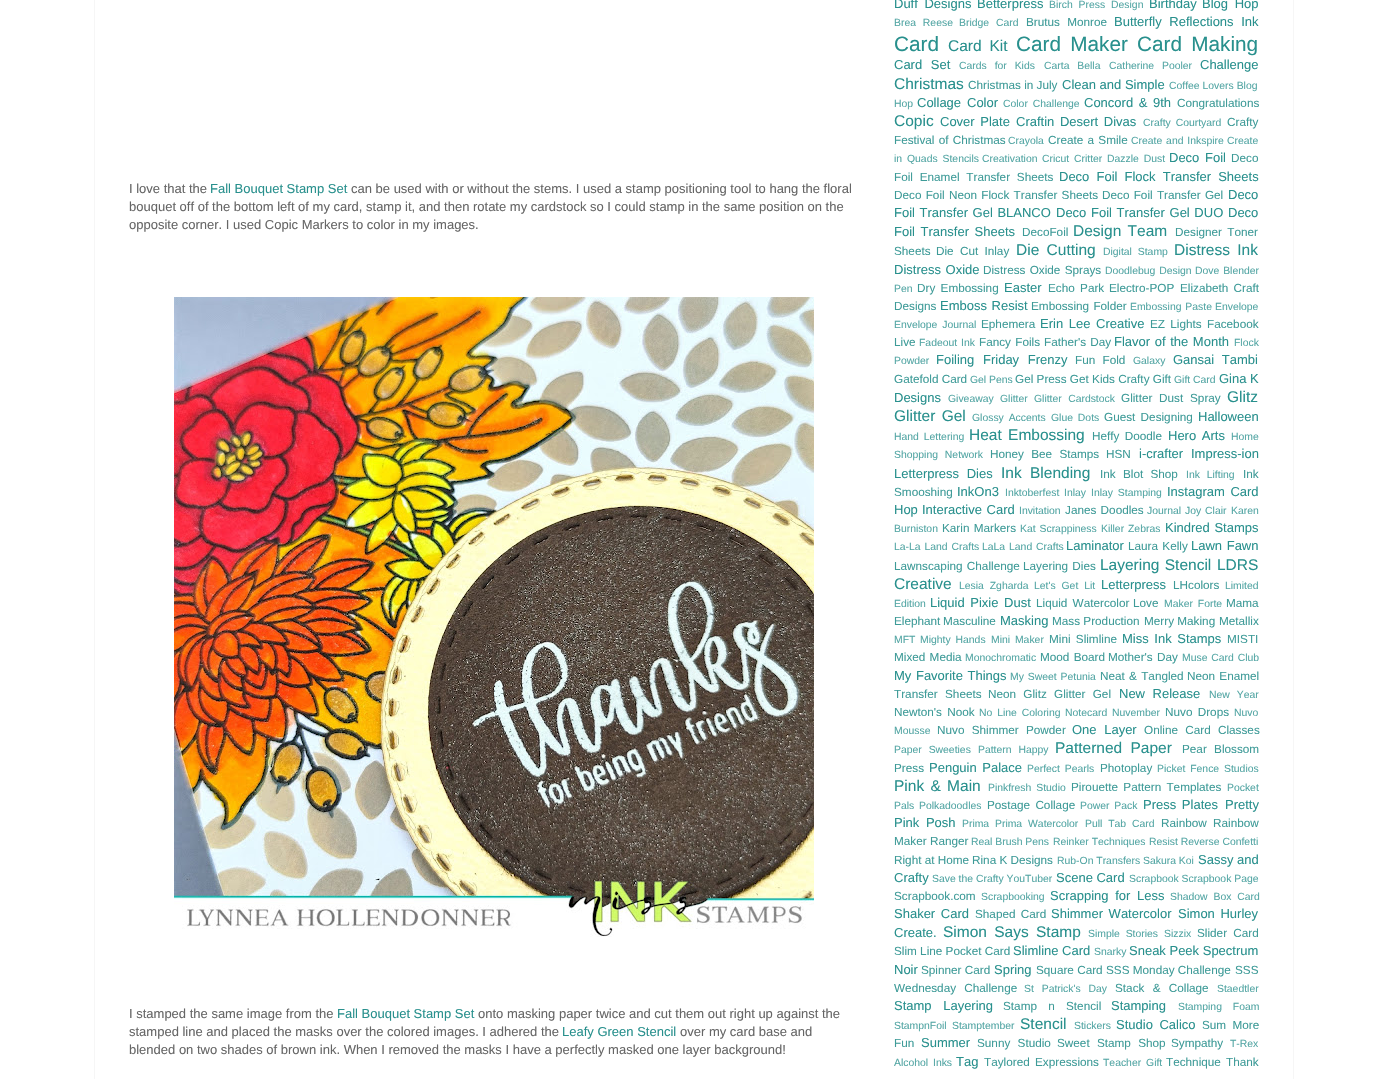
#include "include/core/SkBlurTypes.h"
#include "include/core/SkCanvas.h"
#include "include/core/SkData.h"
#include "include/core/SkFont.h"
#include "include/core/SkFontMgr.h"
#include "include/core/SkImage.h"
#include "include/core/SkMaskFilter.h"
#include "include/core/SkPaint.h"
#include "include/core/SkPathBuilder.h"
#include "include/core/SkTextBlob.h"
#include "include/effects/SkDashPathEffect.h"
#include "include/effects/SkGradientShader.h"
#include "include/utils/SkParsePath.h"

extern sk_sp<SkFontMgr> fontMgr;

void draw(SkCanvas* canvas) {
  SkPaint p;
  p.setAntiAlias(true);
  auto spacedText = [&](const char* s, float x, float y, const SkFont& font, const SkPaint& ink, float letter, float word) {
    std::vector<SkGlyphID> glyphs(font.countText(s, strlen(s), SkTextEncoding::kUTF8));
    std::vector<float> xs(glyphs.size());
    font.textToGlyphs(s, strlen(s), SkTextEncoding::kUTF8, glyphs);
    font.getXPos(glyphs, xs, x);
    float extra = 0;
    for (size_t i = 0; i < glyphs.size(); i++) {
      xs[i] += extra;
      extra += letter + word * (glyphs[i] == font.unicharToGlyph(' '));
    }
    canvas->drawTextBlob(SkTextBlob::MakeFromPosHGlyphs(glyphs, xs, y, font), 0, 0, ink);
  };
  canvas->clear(SK_ColorWHITE);
  p.setColor(SkColorSetRGB(246, 246, 246));
  canvas->drawRect(SkRect::MakeLTRB(1293, 0, 1294, 1079), p);
  canvas->drawRect(SkRect::MakeLTRB(94, 0, 95, 1079), p);
  canvas->drawImageRect(SkImages::DeferredFromEncodedData(SkData::MakeFromFileName("images/1.png")), SkRect::MakeLTRB(174, 297, 814, 937), SkSamplingOptions());
  SkFont font1(fontMgr->matchFamilyStyle("Liberation Sans", SkFontStyle::Normal()), 13);
  font1.setSubpixel(true);
  p.setColor(SkColorSetRGB(102, 102, 102));
  canvas->drawString("I love that the", 129, 193, font1, p);
  p.setColor(SkColorSetRGB(40, 144, 141));
  canvas->drawString("Fall Bouquet Stamp Set", 210, 193, font1, p);
  p.setColor(SkColorSetRGB(102, 102, 102));
  canvas->drawString("can be used with or without the stems. I used a stamp positioning tool to hang the floral", 351, 193, font1, p);
  canvas->drawString("bouquet off of the bottom left of my card, stamp it, and then rotate my cardstock so I could stamp in the same position on the", 129, 211, font1, p);
  canvas->drawString("opposite corner. I used Copic Markers to color in my images.", 129, 229, font1, p);
  canvas->drawString("I stamped the same image from the", 129, 1018, font1, p);
  p.setColor(SkColorSetRGB(40, 144, 141));
  canvas->drawString("Fall Bouquet Stamp Set", 337, 1018, font1, p);
  p.setColor(SkColorSetRGB(102, 102, 102));
  canvas->drawString("onto masking paper twice and cut them out right up against the", 478, 1018, font1, p);
  canvas->drawString("stamped line and placed the masks over the colored images. I adhered the", 129, 1036, font1, p);
  p.setColor(SkColorSetRGB(40, 144, 141));
  canvas->drawString("Leafy Green Stencil", 562, 1036, font1, p);
  p.setColor(SkColorSetRGB(102, 102, 102));
  canvas->drawString("over my card base and", 680, 1036, font1, p);
  canvas->drawString("blended on two shades of brown ink. When I removed the masks I have a perfectly masked one layer background!", 129, 1054, font1, p);
  p.setColor(SkColorSetRGB(40, 144, 141));
  spacedText("Duff Designs", 894, 8, font1, p, 0, 3);
  canvas->drawString("Betterpress", 977, 8, font1, p);
  SkFont font2(fontMgr->matchFamilyStyle("Liberation Sans", SkFontStyle::Normal()), 10.4f);
  font2.setSubpixel(true);
  p.setColor(SkColorSetRGB(83, 166, 164));
  spacedText("Birch Press Design", 1049, 8, font2, p, 0, 3);
  p.setColor(SkColorSetRGB(40, 144, 141));
  canvas->drawString("Birthday", 1149, 8, font1, p);
  spacedText("Blog Hop", 1202, 8, font1, p, 0, 3);
  p.setColor(SkColorSetRGB(83, 166, 164));
  spacedText("Brea Reese", 894, 26, font2, p, 0, 4);
  spacedText("Bridge Card", 959, 26, font2, p, 0, 4);
  SkFont font3(fontMgr->matchFamilyStyle("Liberation Sans", SkFontStyle::Normal()), 11.75f);
  font3.setSubpixel(true);
  p.setColor(SkColorSetRGB(62, 155, 152));
  spacedText("Brutus Monroe", 1026, 26, font3, p, 0, 4);
  p.setColor(SkColorSetRGB(40, 144, 141));
  spacedText("Butterfly Reflections Ink", 1114, 26, font1, p, 0, 4);
  SkFont font4(fontMgr->matchFamilyStyle("Liberation Sans", SkFontStyle::Normal()), 20.75f);
  font4.setSubpixel(true);
  canvas->drawString("Card", 894, 51, font4, p);
  SkFont font5(fontMgr->matchFamilyStyle("Liberation Sans", SkFontStyle::Normal()), 15.5f);
  font5.setSubpixel(true);
  spacedText("Card Kit", 948, 51, font5, p, 0, 3.5f);
  spacedText("Card Maker", 1016, 51, font4, p, 0, 3.5f);
  spacedText("Card Making", 1137, 51, font4, p, 0, 3.5f);
  spacedText("Card Set", 894, 69, font1, p, 0, 5);
  p.setColor(SkColorSetRGB(83, 166, 164));
  spacedText("Cards for Kids", 959, 69, font2, p, 0, 5);
  spacedText("Carta Bella", 1044, 69, font2, p, 0, 5);
  spacedText("Catherine Pooler", 1109, 69, font2, p, 0, 5);
  p.setColor(SkColorSetRGB(40, 144, 141));
  canvas->drawString("Challenge", 1200, 69, font1, p);
  canvas->drawString("Christmas", 894, 89, font5, p);
  p.setColor(SkColorSetRGB(62, 155, 152));
  canvas->drawString("Christmas in July", 968, 89, font3, p);
  p.setColor(SkColorSetRGB(40, 144, 141));
  canvas->drawString("Clean and Simple", 1062, 89, font1, p);
  p.setColor(SkColorSetRGB(83, 166, 164));
  canvas->drawString("Coffee Lovers Blog", 1169, 89, font2, p);
  canvas->drawString("Hop", 894, 107, font2, p);
  p.setColor(SkColorSetRGB(40, 144, 141));
  canvas->drawString("Collage", 917, 107, font1, p);
  canvas->drawString("Color", 967, 107, font1, p);
  p.setColor(SkColorSetRGB(83, 166, 164));
  spacedText("Color Challenge", 1003, 107, font2, p, 0, 2);
  p.setColor(SkColorSetRGB(40, 144, 141));
  spacedText("Concord & 9th", 1084, 107, font1, p, 0, 2);
  p.setColor(SkColorSetRGB(62, 155, 152));
  canvas->drawString("Congratulations", 1177, 107, font3, p);
  p.setColor(SkColorSetRGB(40, 144, 141));
  canvas->drawString("Copic", 894, 126, font5, p);
  spacedText("Cover Plate", 940, 126, font1, p, 0, 2);
  spacedText("Craftin Desert Divas", 1016, 126, font1, p, 0, 2);
  p.setColor(SkColorSetRGB(83, 166, 164));
  spacedText("Crafty Courtyard", 1143, 126, font2, p, 0, 2);
  p.setColor(SkColorSetRGB(62, 155, 152));
  canvas->drawString("Crafty", 1227, 126, font3, p);
  spacedText("Festival of Christmas", 894, 144, font3, p, 0, 1);
  p.setColor(SkColorSetRGB(83, 166, 164));
  canvas->drawString("Crayola", 1008, 144, font2, p);
  p.setColor(SkColorSetRGB(62, 155, 152));
  spacedText("Create a Smile", 1048, 144, font3, p, 0, 1);
  p.setColor(SkColorSetRGB(83, 166, 164));
  spacedText("Create and Inkspire", 1131, 144, font2, p, 0, 1);
  canvas->drawString("Create", 1227, 144, font2, p);
  spacedText("in Quads Stencils", 894, 162, font2, p, 0, 2);
  canvas->drawString("Creativation", 982, 162, font2, p);
  canvas->drawString("Cricut", 1042, 162, font2, p);
  canvas->drawString("Critter", 1074, 162, font2, p);
  spacedText("Dazzle Dust", 1107, 162, font2, p, 0, 2);
  p.setColor(SkColorSetRGB(40, 144, 141));
  spacedText("Deco Foil", 1169, 162, font1, p, 0, 2);
  p.setColor(SkColorSetRGB(62, 155, 152));
  canvas->drawString("Deco", 1231, 162, font3, p);
  spacedText("Foil Enamel Transfer Sheets", 894, 181, font3, p, 0, 3.5f);
  p.setColor(SkColorSetRGB(40, 144, 141));
  spacedText("Deco Foil Flock Transfer Sheets", 1059, 181, font1, p, 0, 3.5f);
  p.setColor(SkColorSetRGB(62, 155, 152));
  spacedText("Deco Foil Neon Flock Transfer Sheets", 894, 199, font3, p, 0, 1);
  spacedText("Deco Foil Transfer Gel", 1102, 199, font3, p, 0, 1);
  p.setColor(SkColorSetRGB(40, 144, 141));
  canvas->drawString("Deco", 1228, 199, font1, p);
  spacedText("Foil Transfer Gel BLANCO", 894, 217, font1, p, 0, 1);
  spacedText("Deco Foil Transfer Gel DUO", 1056, 217, font1, p, 0, 1);
  canvas->drawString("Deco", 1228, 217, font1, p);
  spacedText("Foil Transfer Sheets", 894, 236, font1, p, 0, 2);
  p.setColor(SkColorSetRGB(62, 155, 152));
  canvas->drawString("DecoFoil", 1022, 236, font3, p);
  p.setColor(SkColorSetRGB(40, 144, 141));
  spacedText("Design Team", 1073, 236, font5, p, 0, 2);
  p.setColor(SkColorSetRGB(62, 155, 152));
  spacedText("Designer Toner", 1175, 236, font3, p, 0, 2);
  canvas->drawString("Sheets", 894, 255, font3, p);
  spacedText("Die Cut Inlay", 936, 255, font3, p, 0, 3);
  p.setColor(SkColorSetRGB(40, 144, 141));
  spacedText("Die Cutting", 1016, 255, font5, p, 0, 3);
  p.setColor(SkColorSetRGB(83, 166, 164));
  spacedText("Digital Stamp", 1103, 255, font2, p, 0, 3);
  p.setColor(SkColorSetRGB(40, 144, 141));
  spacedText("Distress Ink", 1174, 255, font5, p, 0, 3);
  spacedText("Distress Oxide", 894, 274, font1, p, 0, 1);
  p.setColor(SkColorSetRGB(62, 155, 152));
  spacedText("Distress Oxide Sprays", 983, 274, font3, p, 0, 1);
  p.setColor(SkColorSetRGB(83, 166, 164));
  spacedText("Doodlebug Design", 1105, 274, font2, p, 0, 1);
  spacedText("Dove Blender", 1195, 274, font2, p, 0, 1);
  canvas->drawString("Pen", 894, 292, font2, p);
  p.setColor(SkColorSetRGB(62, 155, 152));
  spacedText("Dry Embossing", 917, 292, font3, p, 0, 2);
  p.setColor(SkColorSetRGB(40, 144, 141));
  canvas->drawString("Easter", 1004, 292, font1, p);
  p.setColor(SkColorSetRGB(62, 155, 152));
  spacedText("Echo Park", 1048, 292, font3, p, 0, 2);
  canvas->drawString("Electro-POP", 1109, 292, font3, p);
  spacedText("Elizabeth Craft", 1180, 292, font3, p, 0, 2);
  canvas->drawString("Designs", 894, 310, font3, p);
  p.setColor(SkColorSetRGB(40, 144, 141));
  spacedText("Emboss Resist", 940, 310, font1, p, 0, 1);
  p.setColor(SkColorSetRGB(62, 155, 152));
  spacedText("Embossing Folder", 1031, 310, font3, p, 0, 1);
  p.setColor(SkColorSetRGB(83, 166, 164));
  spacedText("Embossing Paste", 1130, 310, font2, p, 0, 1);
  canvas->drawString("Envelope", 1215, 310, font2, p);
  spacedText("Envelope Journal", 894, 328, font2, p, 0, 2);
  p.setColor(SkColorSetRGB(62, 155, 152));
  canvas->drawString("Ephemera", 981, 328, font3, p);
  p.setColor(SkColorSetRGB(40, 144, 141));
  spacedText("Erin Lee Creative", 1040, 328, font1, p, 0, 2);
  p.setColor(SkColorSetRGB(62, 155, 152));
  spacedText("EZ Lights", 1150, 328, font3, p, 0, 2);
  canvas->drawString("Facebook", 1207, 328, font3, p);
  canvas->drawString("Live", 894, 346, font3, p);
  p.setColor(SkColorSetRGB(83, 166, 164));
  spacedText("Fadeout Ink", 919, 346, font2, p, 0, 1);
  p.setColor(SkColorSetRGB(62, 155, 152));
  spacedText("Fancy Foils", 979, 346, font3, p, 0, 1);
  spacedText("Father's Day", 1044, 346, font3, p, 0, 1);
  p.setColor(SkColorSetRGB(40, 144, 141));
  spacedText("Flavor of the Month", 1114, 346, font1, p, 0, 1);
  p.setColor(SkColorSetRGB(83, 166, 164));
  canvas->drawString("Flock", 1234, 346, font2, p);
  canvas->drawString("Powder", 894, 364, font2, p);
  p.setColor(SkColorSetRGB(40, 144, 141));
  canvas->drawString("Foiling", 936, 364, font1, p);
  spacedText("Friday Frenzy", 983, 364, font1, p, 0, 5);
  p.setColor(SkColorSetRGB(62, 155, 152));
  spacedText("Fun Fold", 1075, 364, font3, p, 0, 4);
  p.setColor(SkColorSetRGB(83, 166, 164));
  canvas->drawString("Galaxy", 1133, 364, font2, p);
  p.setColor(SkColorSetRGB(40, 144, 141));
  spacedText("Gansai Tambi", 1173, 364, font1, p, 0, 4);
  p.setColor(SkColorSetRGB(62, 155, 152));
  canvas->drawString("Gatefold Card", 894, 383, font3, p);
  p.setColor(SkColorSetRGB(83, 166, 164));
  canvas->drawString("Gel Pens", 970, 383, font2, p);
  p.setColor(SkColorSetRGB(62, 155, 152));
  canvas->drawString("Gel Press Get Kids Crafty Gift", 1015, 383, font3, p);
  p.setColor(SkColorSetRGB(83, 166, 164));
  canvas->drawString("Gift Card", 1174, 383, font2, p);
  p.setColor(SkColorSetRGB(40, 144, 141));
  canvas->drawString("Gina K", 1219, 383, font1, p);
  canvas->drawString("Designs", 894, 402, font1, p);
  p.setColor(SkColorSetRGB(83, 166, 164));
  canvas->drawString("Giveaway", 948, 402, font2, p);
  canvas->drawString("Glitter", 1000, 402, font2, p);
  spacedText("Glitter Cardstock", 1034, 402, font2, p, 0, 3.5f);
  p.setColor(SkColorSetRGB(62, 155, 152));
  spacedText("Glitter Dust Spray", 1121, 402, font3, p, 0, 3.5f);
  p.setColor(SkColorSetRGB(40, 144, 141));
  canvas->drawString("Glitz", 1227, 402, font5, p);
  spacedText("Glitter Gel", 894, 421, font5, p, 0, 2);
  p.setColor(SkColorSetRGB(83, 166, 164));
  spacedText("Glossy Accents", 972, 421, font2, p, 0, 2);
  spacedText("Glue Dots", 1051, 421, font2, p, 0, 2);
  p.setColor(SkColorSetRGB(62, 155, 152));
  spacedText("Guest Designing", 1104, 421, font3, p, 0, 2);
  p.setColor(SkColorSetRGB(40, 144, 141));
  canvas->drawString("Halloween", 1198, 421, font1, p);
  p.setColor(SkColorSetRGB(83, 166, 164));
  spacedText("Hand Lettering", 894, 440, font2, p, 0, 2);
  p.setColor(SkColorSetRGB(40, 144, 141));
  spacedText("Heat Embossing", 969, 440, font5, p, 0, 2);
  p.setColor(SkColorSetRGB(62, 155, 152));
  spacedText("Heffy Doodle", 1092, 440, font3, p, 0, 2);
  p.setColor(SkColorSetRGB(40, 144, 141));
  spacedText("Hero Arts", 1168, 440, font1, p, 0, 2);
  p.setColor(SkColorSetRGB(83, 166, 164));
  canvas->drawString("Home", 1231, 440, font2, p);
  spacedText("Shopping Network", 894, 458, font2, p, 0, 4);
  p.setColor(SkColorSetRGB(62, 155, 152));
  spacedText("Honey Bee Stamps", 990, 458, font3, p, 0, 4);
  canvas->drawString("HSN", 1106, 458, font3, p);
  p.setColor(SkColorSetRGB(40, 144, 141));
  canvas->drawString("i-crafter", 1139, 458, font1, p);
  canvas->drawString("Impress-ion", 1191, 458, font1, p);
  spacedText("Letterpress Dies", 894, 478, font1, p, 0, 4);
  spacedText("Ink Blending", 1001, 478, font5, p, 0, 4);
  p.setColor(SkColorSetRGB(62, 155, 152));
  spacedText("Ink Blot Shop", 1100, 478, font3, p, 0, 4);
  p.setColor(SkColorSetRGB(83, 166, 164));
  spacedText("Ink Lifting", 1186, 478, font2, p, 0, 4);
  p.setColor(SkColorSetRGB(62, 155, 152));
  canvas->drawString("Ink", 1243, 478, font3, p);
  canvas->drawString("Smooshing", 894, 496, font3, p);
  p.setColor(SkColorSetRGB(40, 144, 141));
  canvas->drawString("InkOn3", 957, 496, font1, p);
  p.setColor(SkColorSetRGB(83, 166, 164));
  canvas->drawString("Inktoberfest", 1005, 496, font2, p);
  canvas->drawString("Inlay", 1064, 496, font2, p);
  spacedText("Inlay Stamping", 1091, 496, font2, p, 0, 2);
  p.setColor(SkColorSetRGB(40, 144, 141));
  spacedText("Instagram Card", 1167, 496, font1, p, 0, 2);
  canvas->drawString("Hop", 894, 514, font1, p);
  spacedText("Interactive Card", 922, 514, font1, p, 0, 1);
  p.setColor(SkColorSetRGB(83, 166, 164));
  canvas->drawString("Invitation", 1019, 514, font2, p);
  p.setColor(SkColorSetRGB(62, 155, 152));
  spacedText("Janes Doodles", 1065, 514, font3, p, 0, 1);
  p.setColor(SkColorSetRGB(83, 166, 164));
  canvas->drawString("Journal", 1147, 514, font2, p);
  spacedText("Joy Clair", 1185, 514, font2, p, 0, 1);
  canvas->drawString("Karen", 1231, 514, font2, p);
  canvas->drawString("Burniston", 894, 532, font2, p);
  p.setColor(SkColorSetRGB(62, 155, 152));
  spacedText("Karin Markers", 942, 532, font3, p, 0, 1);
  p.setColor(SkColorSetRGB(83, 166, 164));
  spacedText("Kat Scrappiness", 1020, 532, font2, p, 0, 1);
  spacedText("Killer Zebras", 1101, 532, font2, p, 0, 1);
  p.setColor(SkColorSetRGB(40, 144, 141));
  spacedText("Kindred Stamps", 1165, 532, font1, p, 0, 1);
  p.setColor(SkColorSetRGB(83, 166, 164));
  spacedText("La-La Land Crafts", 894, 550, font2, p, 0, 1);
  spacedText("LaLa Land Crafts", 982, 550, font2, p, 0, 1);
  p.setColor(SkColorSetRGB(40, 144, 141));
  canvas->drawString("Laminator", 1066, 550, font1, p);
  p.setColor(SkColorSetRGB(62, 155, 152));
  spacedText("Laura Kelly", 1128, 550, font3, p, 0, 1);
  p.setColor(SkColorSetRGB(40, 144, 141));
  spacedText("Lawn Fawn", 1191, 550, font1, p, 0, 1);
  p.setColor(SkColorSetRGB(62, 155, 152));
  spacedText("Lawnscaping Challenge", 894, 570, font3, p, 0, 1);
  spacedText("Layering Dies", 1023, 570, font3, p, 0, 1);
  p.setColor(SkColorSetRGB(40, 144, 141));
  spacedText("Layering Stencil", 1100, 570, font5, p, 0, 1);
  canvas->drawString("LDRS", 1217, 570, font5, p);
  canvas->drawString("Creative", 894, 589, font5, p);
  p.setColor(SkColorSetRGB(83, 166, 164));
  spacedText("Lesia Zgharda", 959, 589, font2, p, 0, 3);
  spacedText("Let's Get Lit", 1034, 589, font2, p, 0, 3);
  p.setColor(SkColorSetRGB(40, 144, 141));
  canvas->drawString("Letterpress", 1101, 589, font1, p);
  p.setColor(SkColorSetRGB(62, 155, 152));
  canvas->drawString("LHcolors", 1173, 589, font3, p);
  p.setColor(SkColorSetRGB(83, 166, 164));
  canvas->drawString("Limited", 1225, 589, font2, p);
  canvas->drawString("Edition", 894, 607, font2, p);
  p.setColor(SkColorSetRGB(40, 144, 141));
  spacedText("Liquid Pixie Dust", 930, 607, font1, p, 0, 2);
  p.setColor(SkColorSetRGB(62, 155, 152));
  spacedText("Liquid Watercolor", 1036, 607, font3, p, 0, 2);
  canvas->drawString("Love", 1133, 607, font3, p);
  p.setColor(SkColorSetRGB(83, 166, 164));
  spacedText("Maker Forte", 1164, 607, font2, p, 0, 2);
  p.setColor(SkColorSetRGB(62, 155, 152));
  canvas->drawString("Mama", 1226, 607, font3, p);
  canvas->drawString("Elephant", 894, 625, font3, p);
  canvas->drawString("Masculine", 943, 625, font3, p);
  p.setColor(SkColorSetRGB(40, 144, 141));
  canvas->drawString("Masking", 1000, 625, font1, p);
  p.setColor(SkColorSetRGB(62, 155, 152));
  canvas->drawString("Mass Production", 1052, 625, font3, p);
  canvas->drawString("Merry Making", 1144, 625, font3, p);
  canvas->drawString("Metallix", 1219, 625, font3, p);
  p.setColor(SkColorSetRGB(83, 166, 164));
  canvas->drawString("MFT", 894, 643, font2, p);
  spacedText("Mighty Hands", 920, 643, font2, p, 0, 2);
  spacedText("Mini Maker", 991, 643, font2, p, 0, 2);
  p.setColor(SkColorSetRGB(62, 155, 152));
  spacedText("Mini Slimline", 1049, 643, font3, p, 0, 2);
  p.setColor(SkColorSetRGB(40, 144, 141));
  spacedText("Miss Ink Stamps", 1122, 643, font1, p, 0, 2);
  p.setColor(SkColorSetRGB(62, 155, 152));
  canvas->drawString("MISTI", 1227, 643, font3, p);
  spacedText("Mixed Media", 894, 661, font3, p, 0, 1);
  p.setColor(SkColorSetRGB(83, 166, 164));
  canvas->drawString("Monochromatic", 965, 661, font2, p);
  p.setColor(SkColorSetRGB(62, 155, 152));
  spacedText("Mood Board", 1040, 661, font3, p, 0, 1);
  spacedText("Mother's Day", 1108, 661, font3, p, 0, 1);
  p.setColor(SkColorSetRGB(83, 166, 164));
  spacedText("Muse Card Club", 1182, 661, font2, p, 0, 1);
  p.setColor(SkColorSetRGB(40, 144, 141));
  spacedText("My Favorite Things", 894, 680, font1, p, 0, 1);
  p.setColor(SkColorSetRGB(83, 166, 164));
  spacedText("My Sweet Petunia", 1010, 680, font2, p, 0, 1);
  p.setColor(SkColorSetRGB(62, 155, 152));
  spacedText("Neat & Tangled", 1100, 680, font3, p, 0, 1);
  spacedText("Neon Enamel", 1187, 680, font3, p, 0, 1);
  spacedText("Transfer Sheets", 894, 698, font3, p, 0, 4);
  spacedText("Neon Glitz Glitter Gel", 988, 698, font3, p, 0, 4);
  p.setColor(SkColorSetRGB(40, 144, 141));
  spacedText("New Release", 1119, 698, font1, p, 0, 4);
  p.setColor(SkColorSetRGB(83, 166, 164));
  spacedText("New Year", 1209, 698, font2, p, 0, 4);
  p.setColor(SkColorSetRGB(62, 155, 152));
  spacedText("Newton's Nook", 894, 716, font3, p, 0, 2);
  p.setColor(SkColorSetRGB(83, 166, 164));
  spacedText("No Line Coloring", 979, 716, font2, p, 0, 2);
  canvas->drawString("Notecard", 1065, 716, font2, p);
  canvas->drawString("Nuvember", 1112, 716, font2, p);
  p.setColor(SkColorSetRGB(62, 155, 152));
  spacedText("Nuvo Drops", 1165, 716, font3, p, 0, 2);
  p.setColor(SkColorSetRGB(83, 166, 164));
  canvas->drawString("Nuvo", 1234, 716, font2, p);
  canvas->drawString("Mousse", 894, 734, font2, p);
  p.setColor(SkColorSetRGB(62, 155, 152));
  spacedText("Nuvo Shimmer Powder", 937, 734, font3, p, 0, 4);
  p.setColor(SkColorSetRGB(40, 144, 141));
  spacedText("One Layer", 1072, 734, font1, p, 0, 4);
  p.setColor(SkColorSetRGB(62, 155, 152));
  spacedText("Online Card Classes", 1144, 734, font3, p, 0, 4);
  p.setColor(SkColorSetRGB(83, 166, 164));
  spacedText("Paper Sweeties", 894, 753, font2, p, 0, 4);
  spacedText("Pattern Happy", 978, 753, font2, p, 0, 4);
  p.setColor(SkColorSetRGB(40, 144, 141));
  spacedText("Patterned Paper", 1055, 753, font5, p, 0, 4);
  p.setColor(SkColorSetRGB(62, 155, 152));
  spacedText("Pear Blossom", 1182, 753, font3, p, 0, 4);
  canvas->drawString("Press", 894, 772, font3, p);
  p.setColor(SkColorSetRGB(40, 144, 141));
  spacedText("Penguin Palace", 929, 772, font1, p, 0, 2);
  p.setColor(SkColorSetRGB(83, 166, 164));
  spacedText("Perfect Pearls", 1027, 772, font2, p, 0, 2);
  p.setColor(SkColorSetRGB(62, 155, 152));
  canvas->drawString("Photoplay", 1100, 772, font3, p);
  p.setColor(SkColorSetRGB(83, 166, 164));
  spacedText("Picket Fence Studios", 1157, 772, font2, p, 0, 2);
  p.setColor(SkColorSetRGB(40, 144, 141));
  spacedText("Pink & Main", 894, 791, font5, p, 0, 2);
  p.setColor(SkColorSetRGB(83, 166, 164));
  spacedText("Pinkfresh Studio", 988, 791, font2, p, 0, 2);
  p.setColor(SkColorSetRGB(62, 155, 152));
  spacedText("Pirouette Pattern Templates", 1071, 791, font3, p, 0, 2);
  p.setColor(SkColorSetRGB(83, 166, 164));
  canvas->drawString("Pocket", 1227, 791, font2, p);
  canvas->drawString("Pals", 894, 809, font2, p);
  canvas->drawString("Polkadoodles", 919, 809, font2, p);
  p.setColor(SkColorSetRGB(62, 155, 152));
  spacedText("Postage Collage", 987, 809, font3, p, 0, 2);
  p.setColor(SkColorSetRGB(83, 166, 164));
  spacedText("Power Pack", 1080, 809, font2, p, 0, 2);
  p.setColor(SkColorSetRGB(40, 144, 141));
  spacedText("Press Plates", 1143, 809, font1, p, 0, 2);
  canvas->drawString("Pretty", 1225, 809, font1, p);
  spacedText("Pink Posh", 894, 827, font1, p, 0, 3);
  p.setColor(SkColorSetRGB(83, 166, 164));
  canvas->drawString("Prima", 962, 827, font2, p);
  spacedText("Prima Watercolor", 995, 827, font2, p, 0, 3);
  spacedText("Pull Tab Card", 1085, 827, font2, p, 0, 3);
  p.setColor(SkColorSetRGB(62, 155, 152));
  canvas->drawString("Rainbow", 1161, 827, font3, p);
  canvas->drawString("Rainbow", 1213, 827, font3, p);
  canvas->drawString("Maker Ranger", 894, 845, font3, p);
  p.setColor(SkColorSetRGB(83, 166, 164));
  canvas->drawString("Real Brush Pens", 971, 845, font2, p);
  canvas->drawString("Reinker Techniques", 1053, 845, font2, p);
  canvas->drawString("Resist Reverse Confetti", 1149, 845, font2, p);
  p.setColor(SkColorSetRGB(62, 155, 152));
  canvas->drawString("Right at Home", 894, 864, font3, p);
  canvas->drawString("Rina K Designs", 972, 864, font3, p);
  p.setColor(SkColorSetRGB(83, 166, 164));
  canvas->drawString("Rub-On Transfers", 1057, 864, font2, p);
  canvas->drawString("Sakura Koi", 1143, 864, font2, p);
  p.setColor(SkColorSetRGB(40, 144, 141));
  canvas->drawString("Sassy and", 1198, 864, font1, p);
  canvas->drawString("Crafty", 894, 882, font1, p);
  p.setColor(SkColorSetRGB(83, 166, 164));
  canvas->drawString("Save the Crafty YouTuber", 932, 882, font2, p);
  p.setColor(SkColorSetRGB(40, 144, 141));
  canvas->drawString("Scene Card", 1056, 882, font1, p);
  p.setColor(SkColorSetRGB(83, 166, 164));
  canvas->drawString("Scrapbook Scrapbook Page", 1129, 882, font2, p);
  p.setColor(SkColorSetRGB(62, 155, 152));
  canvas->drawString("Scrapbook.com", 894, 900, font3, p);
  p.setColor(SkColorSetRGB(83, 166, 164));
  canvas->drawString("Scrapbooking", 981, 900, font2, p);
  p.setColor(SkColorSetRGB(40, 144, 141));
  spacedText("Scrapping for Less", 1050, 900, font1, p, 0, 3);
  p.setColor(SkColorSetRGB(83, 166, 164));
  spacedText("Shadow Box Card", 1170, 900, font2, p, 0, 3);
  p.setColor(SkColorSetRGB(40, 144, 141));
  spacedText("Shaker Card", 894, 918, font1, p, 0, 2);
  p.setColor(SkColorSetRGB(62, 155, 152));
  spacedText("Shaped Card", 975, 918, font3, p, 0, 2);
  p.setColor(SkColorSetRGB(40, 144, 141));
  spacedText("Shimmer Watercolor", 1051, 918, font1, p, 0, 2);
  spacedText("Simon Hurley", 1178, 918, font1, p, 0, 2);
  canvas->drawString("Create.", 894, 937, font1, p);
  spacedText("Simon Says Stamp", 943, 937, font5, p, 0, 3);
  p.setColor(SkColorSetRGB(83, 166, 164));
  spacedText("Simple Stories", 1088, 937, font2, p, 0, 3);
  canvas->drawString("Sizzix", 1164, 937, font2, p);
  p.setColor(SkColorSetRGB(62, 155, 152));
  spacedText("Slider Card", 1197, 937, font3, p, 0, 3);
  canvas->drawString("Slim Line Pocket Card", 894, 955, font3, p);
  p.setColor(SkColorSetRGB(40, 144, 141));
  canvas->drawString("Slimline Card", 1013, 955, font1, p);
  p.setColor(SkColorSetRGB(83, 166, 164));
  canvas->drawString("Snarky", 1094, 955, font2, p);
  p.setColor(SkColorSetRGB(40, 144, 141));
  canvas->drawString("Sneak Peek Spectrum", 1129, 955, font1, p);
  canvas->drawString("Noir", 894, 974, font1, p);
  p.setColor(SkColorSetRGB(62, 155, 152));
  canvas->drawString("Spinner Card", 921, 974, font3, p);
  p.setColor(SkColorSetRGB(40, 144, 141));
  canvas->drawString("Spring", 994, 974, font1, p);
  p.setColor(SkColorSetRGB(62, 155, 152));
  canvas->drawString("Square Card", 1036, 974, font3, p);
  canvas->drawString("SSS Monday Challenge", 1106, 974, font3, p);
  canvas->drawString("SSS", 1235, 974, font3, p);
  spacedText("Wednesday Challenge", 894, 992, font3, p, 0, 5);
  p.setColor(SkColorSetRGB(83, 166, 164));
  spacedText("St Patrick's Day", 1024, 992, font2, p, 0, 5);
  p.setColor(SkColorSetRGB(62, 155, 152));
  spacedText("Stack & Collage", 1115, 992, font3, p, 0, 5);
  p.setColor(SkColorSetRGB(83, 166, 164));
  canvas->drawString("Staedtler", 1217, 992, font2, p);
  p.setColor(SkColorSetRGB(40, 144, 141));
  spacedText("Stamp Layering", 894, 1010, font1, p, 0, 8);
  p.setColor(SkColorSetRGB(62, 155, 152));
  spacedText("Stamp n Stencil", 1003, 1010, font3, p, 0, 8);
  p.setColor(SkColorSetRGB(40, 144, 141));
  canvas->drawString("Stamping", 1111, 1010, font1, p);
  p.setColor(SkColorSetRGB(83, 166, 164));
  spacedText("Stamping Foam", 1178, 1010, font2, p, 0, 8);
  canvas->drawString("StampnFoil", 894, 1029, font2, p);
  canvas->drawString("Stamptember", 952, 1029, font2, p);
  p.setColor(SkColorSetRGB(40, 144, 141));
  canvas->drawString("Stencil", 1020, 1029, font5, p);
  p.setColor(SkColorSetRGB(83, 166, 164));
  canvas->drawString("Stickers", 1074, 1029, font2, p);
  p.setColor(SkColorSetRGB(40, 144, 141));
  spacedText("Studio Calico", 1116, 1029, font1, p, 0, 3);
  p.setColor(SkColorSetRGB(62, 155, 152));
  spacedText("Sum More", 1202, 1029, font3, p, 0, 3);
  canvas->drawString("Fun", 894, 1047, font3, p);
  p.setColor(SkColorSetRGB(40, 144, 141));
  canvas->drawString("Summer", 921, 1047, font1, p);
  p.setColor(SkColorSetRGB(62, 155, 152));
  spacedText("Sunny Studio", 977, 1047, font3, p, 0, 4);
  spacedText("Sweet Stamp Shop", 1057, 1047, font3, p, 0, 4);
  canvas->drawString("Sympathy", 1171, 1047, font3, p);
  p.setColor(SkColorSetRGB(83, 166, 164));
  canvas->drawString("T-Rex", 1230, 1047, font2, p);
  spacedText("Alcohol Inks", 894, 1066, font2, p, 0, 2);
  p.setColor(SkColorSetRGB(40, 144, 141));
  canvas->drawString("Tag", 956, 1066, font1, p);
  p.setColor(SkColorSetRGB(62, 155, 152));
  spacedText("Taylored Expressions", 984, 1066, font3, p, 0, 2);
  p.setColor(SkColorSetRGB(83, 166, 164));
  spacedText("Teacher Gift", 1103, 1066, font2, p, 0, 2);
  p.setColor(SkColorSetRGB(62, 155, 152));
  canvas->drawString("Technique", 1166, 1066, font3, p);
  canvas->drawString("Thank", 1226, 1066, font3, p);
}
